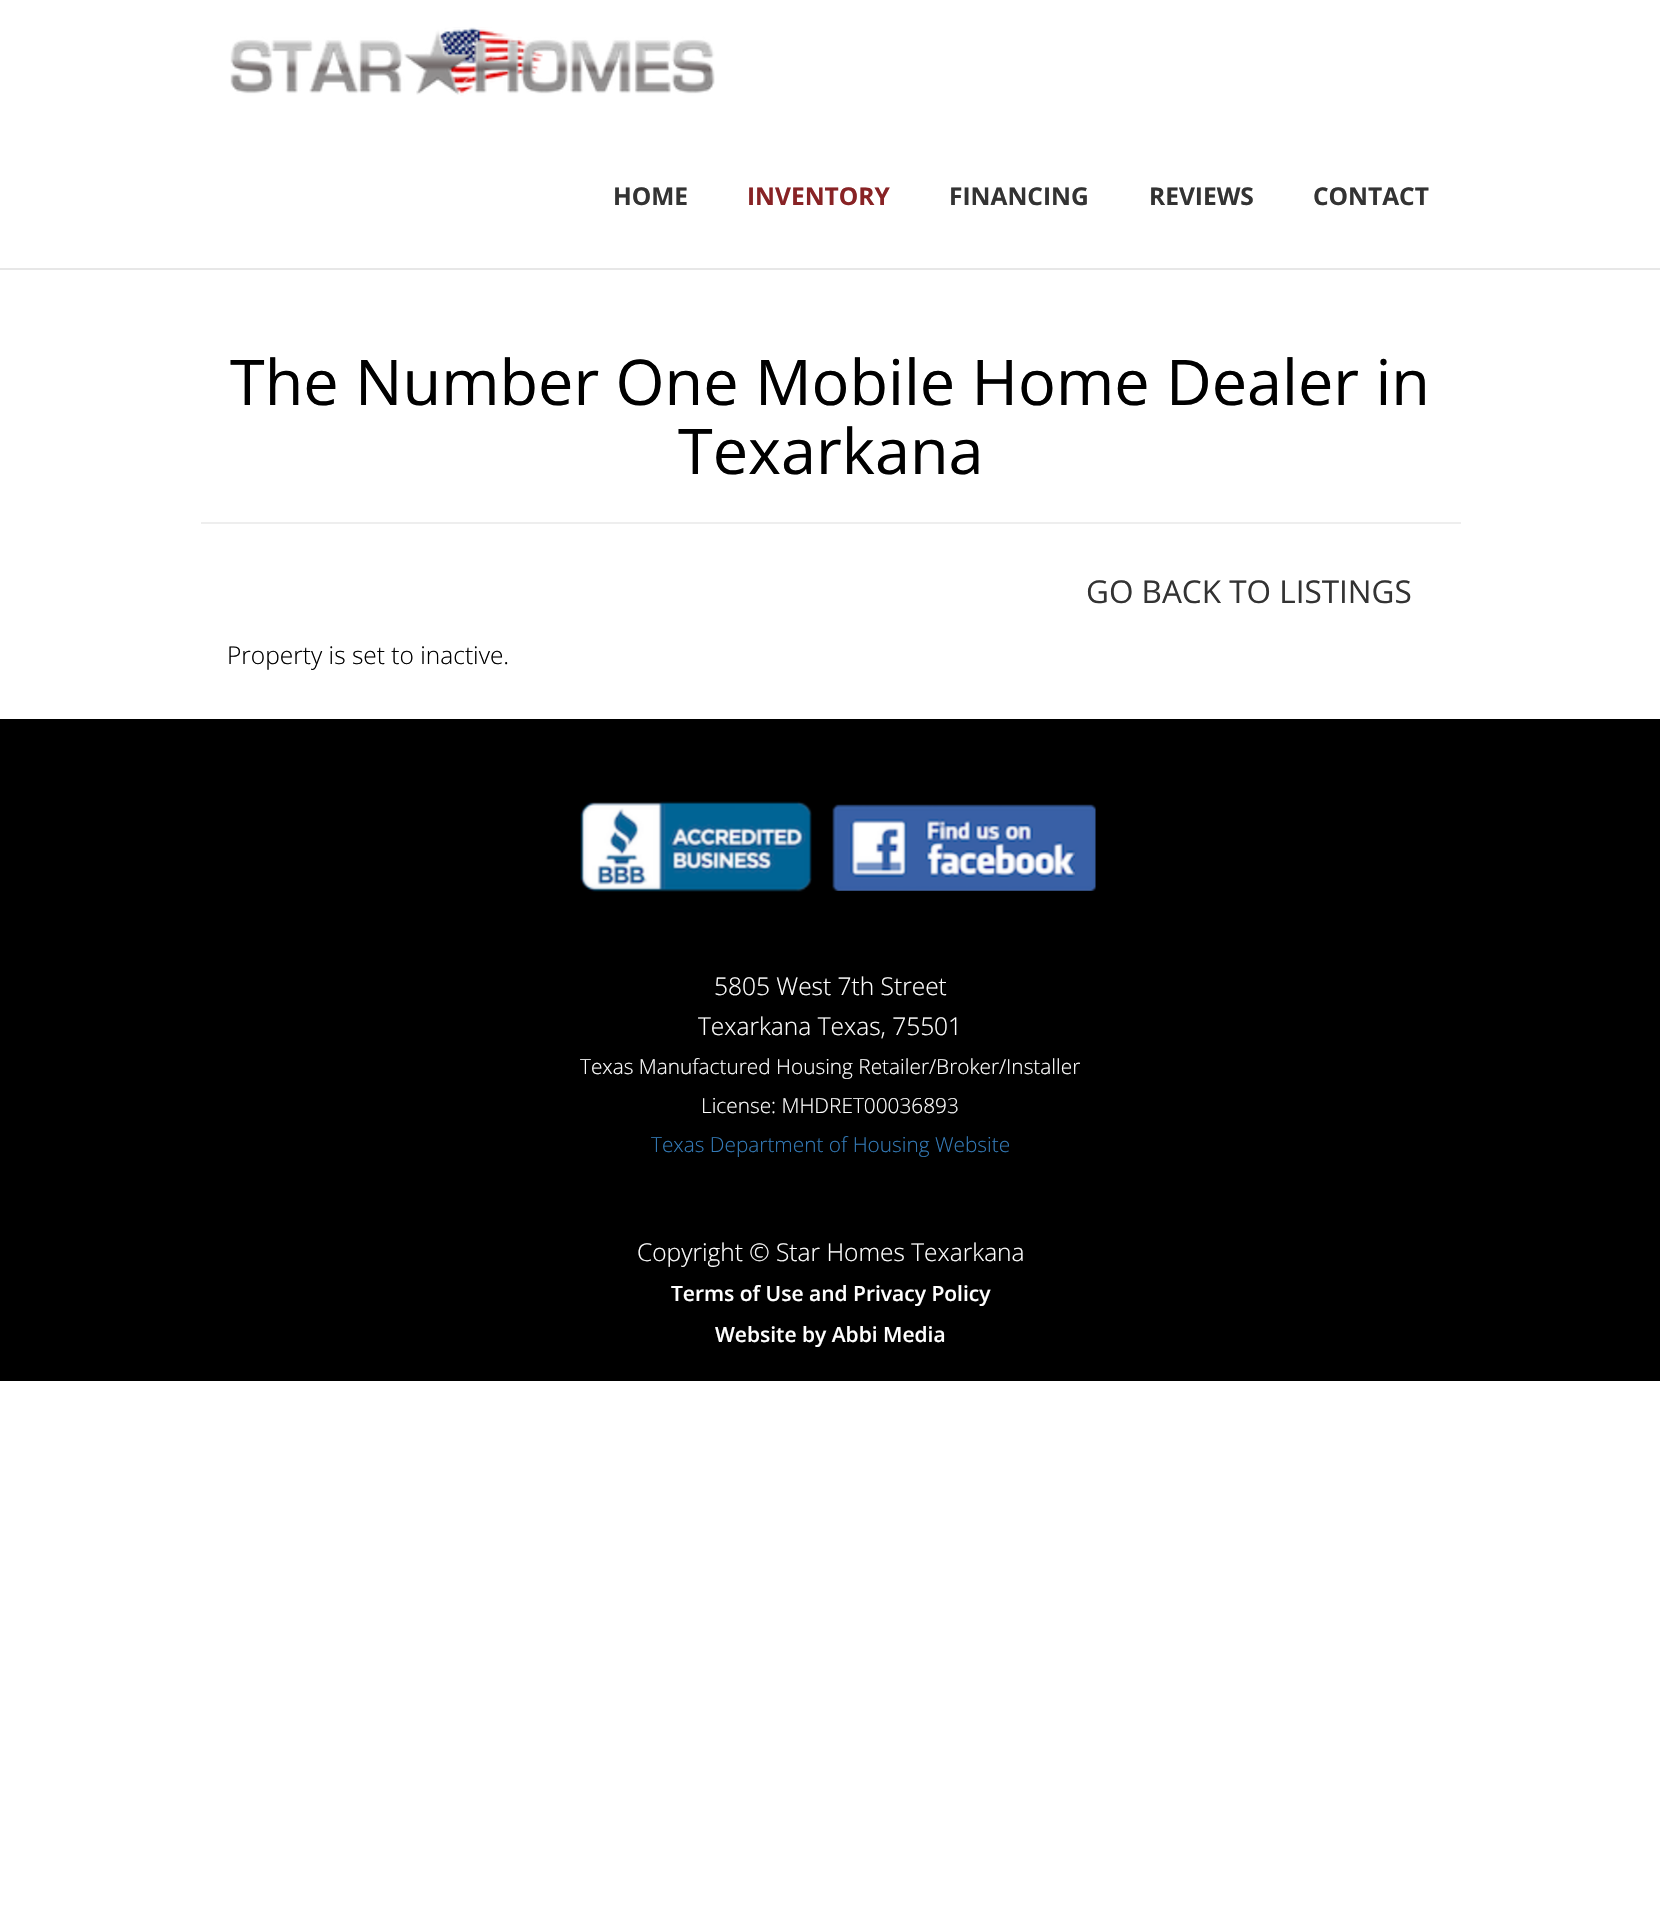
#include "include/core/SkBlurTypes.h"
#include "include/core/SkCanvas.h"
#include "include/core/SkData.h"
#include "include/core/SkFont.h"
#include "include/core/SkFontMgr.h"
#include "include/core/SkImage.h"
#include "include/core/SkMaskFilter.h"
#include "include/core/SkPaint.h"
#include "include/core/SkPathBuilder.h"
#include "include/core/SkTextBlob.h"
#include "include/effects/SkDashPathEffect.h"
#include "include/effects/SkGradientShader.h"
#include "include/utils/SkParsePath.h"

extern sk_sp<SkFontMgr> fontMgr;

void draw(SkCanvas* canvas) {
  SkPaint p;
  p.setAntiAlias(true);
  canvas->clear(SK_ColorWHITE);
  p.setColor(SkColorSetRGB(231, 231, 231));
  canvas->drawRect(SkRect::MakeLTRB(0, 268, 1660, 270), p);
  canvas->drawImageRect(SkImages::DeferredFromEncodedData(SkData::MakeFromFileName("images/1.png")), SkRect::MakeLTRB(230, 27, 715, 96), SkSamplingOptions());
  p.setColor(SkColorSetRGB(238, 238, 238));
  canvas->drawRect(SkRect::MakeLTRB(201, 522, 1461, 524), p);
  p.setColor(SK_ColorBLACK);
  canvas->drawRect(SkRect::MakeLTRB(0, 719, 1660, 1381), p);
  canvas->drawImageRect(SkImages::DeferredFromEncodedData(SkData::MakeFromFileName("images/2.png")), SkRect::MakeLTRB(580, 801, 812, 892), SkSamplingOptions());
  canvas->drawImageRect(SkImages::DeferredFromEncodedData(SkData::MakeFromFileName("images/3.png")), SkRect::MakeLTRB(832, 804, 1096, 891), SkSamplingOptions());
  SkFont font1(fontMgr->matchFamilyStyle("Open Sans", SkFontStyle::Bold()), 24.5f);
  font1.setSubpixel(true);
  p.setColor(SkColorSetRGB(51, 51, 51));
  canvas->drawString("HOME", 613, 205, font1, p);
  p.setColor(SkColorSetRGB(136, 35, 37));
  canvas->drawString("INVENTORY", 747, 205, font1, p);
  p.setColor(SkColorSetRGB(51, 51, 51));
  canvas->drawString("FINANCING", 949, 205, font1, p);
  canvas->drawString("REVIEWS", 1149, 205, font1, p);
  canvas->drawString("CONTACT", 1313, 205, font1, p);
  SkFont font2(fontMgr->matchFamilyStyle("Open Sans", SkFontStyle::Normal()), 63);
  font2.setSubpixel(true);
  p.setColor(SK_ColorBLACK);
  canvas->drawString("The Number One Mobile Home Dealer in", 230, 405, font2, p);
  canvas->drawString("Texarkana", 678, 474, font2, p);
  SkFont font3(fontMgr->matchFamilyStyle("Open Sans", SkFontStyle::Normal()), 31.5f);
  font3.setSubpixel(true);
  p.setColor(SkColorSetRGB(51, 51, 51));
  canvas->drawString("GO BACK TO LISTINGS", 1086, 603, font3, p);
  SkFont font4(fontMgr->matchFamilyStyle("Open Sans", SkFontStyle(300, SkFontStyle::kNormal_Width, SkFontStyle::kUpright_Slant)), 24.5f);
  font4.setSubpixel(true);
  p.setColor(SK_ColorBLACK);
  canvas->drawString("Property is set to inactive.", 227, 664, font4, p);
  p.setColor(SK_ColorWHITE);
  canvas->drawString("5805 West 7th Street", 714, 995, font4, p);
  canvas->drawString("Texarkana Texas, 75501", 698, 1035, font4, p);
  SkFont font5(fontMgr->matchFamilyStyle("Open Sans", SkFontStyle(300, SkFontStyle::kNormal_Width, SkFontStyle::kUpright_Slant)), 20.8f);
  font5.setSubpixel(true);
  canvas->drawString("Texas Manufactured Housing Retailer/Broker/Installer", 580, 1074, font5, p);
  canvas->drawString("License: MHDRET00036893", 701, 1113, font5, p);
  p.setColor(SkColorSetRGB(51, 122, 183));
  canvas->drawString("Texas Department of Housing Website", 651, 1152, font5, p);
  p.setColor(SK_ColorWHITE);
  canvas->drawString("Copyright © Star Homes Texarkana", 637, 1261, font4, p);
  SkFont font6(fontMgr->matchFamilyStyle("Open Sans", SkFontStyle(600, SkFontStyle::kNormal_Width, SkFontStyle::kUpright_Slant)), 21);
  font6.setSubpixel(true);
  canvas->drawString("Terms of Use and Privacy Policy", 671, 1301, font6, p);
  canvas->drawString("Website by Abbi Media", 715, 1342, font6, p);
}
